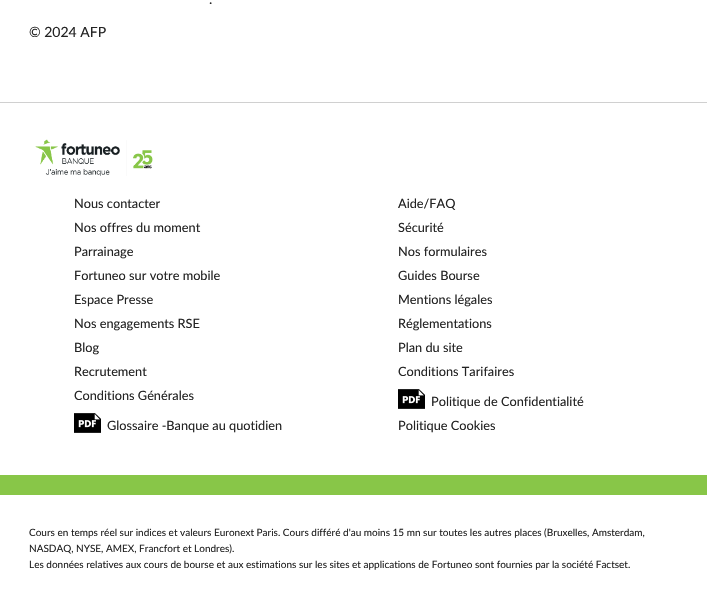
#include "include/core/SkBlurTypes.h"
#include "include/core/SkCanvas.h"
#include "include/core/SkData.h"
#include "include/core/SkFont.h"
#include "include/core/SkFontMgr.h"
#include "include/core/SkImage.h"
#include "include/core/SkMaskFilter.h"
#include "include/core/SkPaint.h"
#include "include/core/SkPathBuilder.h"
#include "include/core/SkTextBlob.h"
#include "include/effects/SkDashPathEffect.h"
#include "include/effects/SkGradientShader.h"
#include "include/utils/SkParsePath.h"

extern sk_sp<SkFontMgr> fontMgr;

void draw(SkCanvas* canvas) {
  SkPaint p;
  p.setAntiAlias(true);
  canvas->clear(SK_ColorWHITE);
  p.setColor(SkColorSetRGB(208, 208, 208));
  canvas->drawRect(SkRect::MakeLTRB(0, 102, 707, 103), p);
  canvas->drawImageRect(SkImages::DeferredFromEncodedData(SkData::MakeFromFileName("images/1.png")), SkRect::MakeLTRB(35, 139, 153, 176), SkSamplingOptions());
  canvas->drawImageRect(SkImages::DeferredFromEncodedData(SkData::MakeFromFileName("images/2.png")), SkRect::MakeLTRB(74, 413, 101, 433), SkSamplingOptions());
  canvas->drawImageRect(SkImages::DeferredFromEncodedData(SkData::MakeFromFileName("images/2.png")), SkRect::MakeLTRB(398, 389, 425, 409), SkSamplingOptions());
  p.setColor(SkColorSetRGB(136, 198, 72));
  canvas->drawRect(SkRect::MakeLTRB(0, 475, 707, 495), p);
  SkFont font1(fontMgr->matchFamilyStyle("Lato", SkFontStyle::Normal()), 14);
  font1.setSubpixel(true);
  p.setColor(SkColorSetRGB(35, 35, 35));
  canvas->drawString(".", 209, 4, font1, p);
  canvas->drawString("© 2024 AFP", 29, 37, font1, p);
  SkFont font2(fontMgr->matchFamilyStyle("Lato", SkFontStyle::Normal()), 12.75f);
  font2.setSubpixel(true);
  canvas->drawString("Nous contacter", 74, 208, font2, p);
  canvas->drawString("Nos offres du moment", 74, 232, font2, p);
  canvas->drawString("Parrainage", 74, 256, font2, p);
  canvas->drawString("Fortuneo sur votre mobile", 74, 280, font2, p);
  canvas->drawString("Espace Presse", 74, 304, font2, p);
  canvas->drawString("Nos engagements RSE", 74, 328, font2, p);
  canvas->drawString("Blog", 74, 352, font2, p);
  canvas->drawString("Recrutement", 74, 376, font2, p);
  canvas->drawString("Conditions Générales", 74, 400, font2, p);
  canvas->drawString("Glossaire -Banque au quotidien", 107, 430, font2, p);
  canvas->drawString("Aide/FAQ", 398, 208, font2, p);
  canvas->drawString("Sécurité", 398, 232, font2, p);
  canvas->drawString("Nos formulaires", 398, 256, font2, p);
  canvas->drawString("Guides Bourse", 398, 280, font2, p);
  canvas->drawString("Mentions légales", 398, 304, font2, p);
  canvas->drawString("Réglementations", 398, 328, font2, p);
  canvas->drawString("Plan du site", 398, 352, font2, p);
  canvas->drawString("Conditions Tarifaires", 398, 376, font2, p);
  canvas->drawString("Politique de Confidentialité", 431, 406, font2, p);
  canvas->drawString("Politique Cookies", 398, 430, font2, p);
  SkFont font3(fontMgr->matchFamilyStyle("Lato", SkFontStyle::Normal()), 10);
  font3.setSubpixel(true);
  canvas->drawString("Cours en temps réel sur indices et valeurs Euronext Paris. Cours différé d'au moins 15 mn sur toutes les autres places (Bruxelles, Amsterdam,", 29, 536, font3, p);
  canvas->drawString("NASDAQ, NYSE, AMEX, Francfort et Londres).", 29, 552, font3, p);
  canvas->drawString("Les données relatives aux cours de bourse et aux estimations sur les sites et applications de Fortuneo sont fournies par la société Factset.", 29, 568, font3, p);
}
